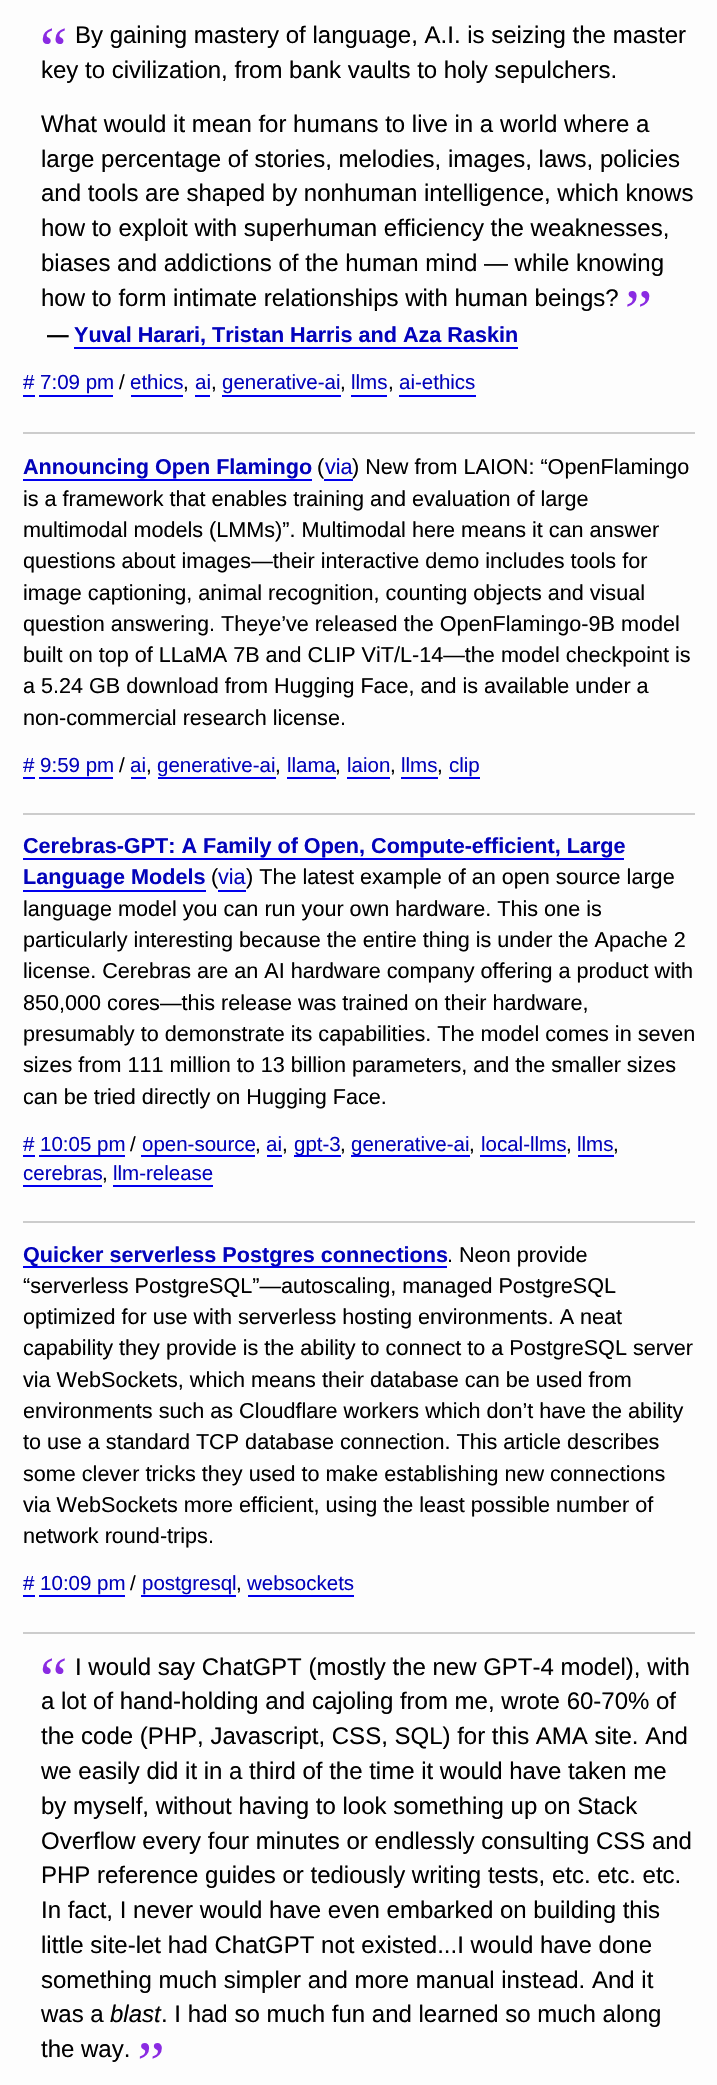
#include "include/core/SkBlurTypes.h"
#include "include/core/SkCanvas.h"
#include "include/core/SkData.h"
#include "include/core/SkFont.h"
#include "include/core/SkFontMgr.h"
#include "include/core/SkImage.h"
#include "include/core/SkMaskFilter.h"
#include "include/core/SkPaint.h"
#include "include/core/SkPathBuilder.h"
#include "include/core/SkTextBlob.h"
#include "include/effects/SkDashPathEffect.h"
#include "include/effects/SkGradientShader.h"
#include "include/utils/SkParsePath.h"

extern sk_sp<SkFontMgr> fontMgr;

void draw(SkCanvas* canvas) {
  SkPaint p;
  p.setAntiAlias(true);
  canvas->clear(SkColorSetRGB(253, 253, 253));
  p.setColor(SkColorSetRGB(204, 204, 204));
  canvas->drawRect(SkRect::MakeLTRB(23, 432, 695, 434), p);
  canvas->drawImageRect(SkImages::DeferredFromEncodedData(SkData::MakeFromFileName("images/1.png")), SkRect::MakeLTRB(42, 28, 65, 44), SkSamplingOptions());
  canvas->drawImageRect(SkImages::DeferredFromEncodedData(SkData::MakeFromFileName("images/2.png")), SkRect::MakeLTRB(627, 291, 650, 307), SkSamplingOptions());
  p.setColor(SkColorSetRGB(0, 0, 238));
  canvas->drawRect(SkRect::MakeLTRB(74, 347, 518, 349), p);
  canvas->drawRect(SkRect::MakeLTRB(23, 395, 35, 397), p);
  canvas->drawRect(SkRect::MakeLTRB(131, 395, 183, 397), p);
  canvas->drawRect(SkRect::MakeLTRB(195, 395, 210, 397), p);
  canvas->drawRect(SkRect::MakeLTRB(222, 395, 341, 397), p);
  canvas->drawRect(SkRect::MakeLTRB(351, 395, 387, 397), p);
  canvas->drawRect(SkRect::MakeLTRB(399, 395, 476, 397), p);
  canvas->drawRect(SkRect::MakeLTRB(39, 395, 113, 397), p);
  p.setColor(SkColorSetRGB(204, 204, 204));
  canvas->drawRect(SkRect::MakeLTRB(23, 813, 695, 815), p);
  p.setColor(SkColorSetRGB(0, 0, 238));
  canvas->drawRect(SkRect::MakeLTRB(23, 479, 312, 481), p);
  canvas->drawRect(SkRect::MakeLTRB(324, 479, 353, 481), p);
  canvas->drawRect(SkRect::MakeLTRB(23, 777, 35, 779), p);
  canvas->drawRect(SkRect::MakeLTRB(131, 777, 146, 779), p);
  canvas->drawRect(SkRect::MakeLTRB(158, 777, 276, 779), p);
  canvas->drawRect(SkRect::MakeLTRB(287, 777, 336, 779), p);
  canvas->drawRect(SkRect::MakeLTRB(347, 777, 390, 779), p);
  canvas->drawRect(SkRect::MakeLTRB(401, 777, 438, 779), p);
  canvas->drawRect(SkRect::MakeLTRB(449, 777, 480, 779), p);
  canvas->drawRect(SkRect::MakeLTRB(39, 777, 113, 779), p);
  p.setColor(SkColorSetRGB(204, 204, 204));
  canvas->drawRect(SkRect::MakeLTRB(23, 1221, 695, 1223), p);
  p.setColor(SkColorSetRGB(0, 0, 238));
  canvas->drawRect(SkRect::MakeLTRB(23, 858, 624, 860), p);
  canvas->drawRect(SkRect::MakeLTRB(23, 890, 206, 892), p);
  canvas->drawRect(SkRect::MakeLTRB(218, 890, 246, 892), p);
  canvas->drawRect(SkRect::MakeLTRB(23, 1155, 35, 1157), p);
  canvas->drawRect(SkRect::MakeLTRB(39, 1155, 125, 1157), p);
  canvas->drawRect(SkRect::MakeLTRB(141, 1155, 255, 1157), p);
  canvas->drawRect(SkRect::MakeLTRB(267, 1155, 282, 1157), p);
  canvas->drawRect(SkRect::MakeLTRB(294, 1155, 341, 1157), p);
  canvas->drawRect(SkRect::MakeLTRB(351, 1155, 470, 1157), p);
  canvas->drawRect(SkRect::MakeLTRB(480, 1155, 566, 1157), p);
  canvas->drawRect(SkRect::MakeLTRB(578, 1155, 614, 1157), p);
  canvas->drawRect(SkRect::MakeLTRB(23, 1185, 102, 1187), p);
  canvas->drawRect(SkRect::MakeLTRB(113, 1185, 213, 1187), p);
  p.setColor(SkColorSetRGB(204, 204, 204));
  canvas->drawRect(SkRect::MakeLTRB(23, 1632, 695, 1634), p);
  p.setColor(SkColorSetRGB(0, 0, 238));
  canvas->drawRect(SkRect::MakeLTRB(23, 1266, 447, 1268), p);
  canvas->drawRect(SkRect::MakeLTRB(23, 1595, 35, 1597), p);
  canvas->drawRect(SkRect::MakeLTRB(141, 1595, 236, 1597), p);
  canvas->drawRect(SkRect::MakeLTRB(248, 1595, 354, 1597), p);
  canvas->drawRect(SkRect::MakeLTRB(39, 1595, 125, 1597), p);
  canvas->drawImageRect(SkImages::DeferredFromEncodedData(SkData::MakeFromFileName("images/1.png")), SkRect::MakeLTRB(42, 1658, 65, 1674), SkSamplingOptions());
  canvas->drawImageRect(SkImages::DeferredFromEncodedData(SkData::MakeFromFileName("images/3.png")), SkRect::MakeLTRB(139, 2043, 162, 2059), SkSamplingOptions());
  SkFont font1(fontMgr->matchFamilyStyle("Liberation Sans", SkFontStyle::Normal()), 24);
  font1.setSubpixel(true);
  p.setColor(SK_ColorBLACK);
  canvas->drawString("By gaining mastery of language, A.I. is seizing the master", 75, 43, font1, p);
  canvas->drawString("key to civilization, from bank vaults to holy sepulchers.", 41, 78, font1, p);
  canvas->drawString("What would it mean for humans to live in a world where a", 41, 132, font1, p);
  canvas->drawString("large percentage of stories, melodies, images, laws, policies", 41, 167, font1, p);
  canvas->drawString("and tools are shaped by nonhuman intelligence, which knows", 41, 201, font1, p);
  canvas->drawString("how to exploit with superhuman efficiency the weaknesses,", 41, 236, font1, p);
  canvas->drawString("biases and addictions of the human mind — while knowing", 41, 271, font1, p);
  canvas->drawString("how to form intimate relationships with human beings?", 41, 306, font1, p);
  SkFont font2(fontMgr->matchFamilyStyle("Liberation Sans", SkFontStyle::Bold()), 21.6f);
  font2.setSubpixel(true);
  canvas->drawString("—", 47, 342, font2, p);
  p.setColor(SkColorSetRGB(3, 3, 187));
  canvas->drawString("Yuval Harari, Tristan Harris and Aza Raskin", 74, 342, font2, p);
  SkFont font3(fontMgr->matchFamilyStyle("Liberation Sans", SkFontStyle::Normal()), 20.5f);
  font3.setSubpixel(true);
  canvas->drawString("# 7:09 pm", 23, 389, font3, p);
  p.setColor(SK_ColorBLACK);
  canvas->drawString("/", 119, 389, font3, p);
  p.setColor(SkColorSetRGB(3, 3, 187));
  canvas->drawString("ethics", 130, 389, font3, p);
  p.setColor(SK_ColorBLACK);
  canvas->drawString(",", 183, 389, font3, p);
  p.setColor(SkColorSetRGB(3, 3, 187));
  canvas->drawString("ai", 195, 389, font3, p);
  p.setColor(SK_ColorBLACK);
  canvas->drawString(",", 211, 389, font3, p);
  p.setColor(SkColorSetRGB(3, 3, 187));
  canvas->drawString("generative-ai", 222, 389, font3, p);
  p.setColor(SK_ColorBLACK);
  canvas->drawString(",", 340, 389, font3, p);
  p.setColor(SkColorSetRGB(3, 3, 187));
  canvas->drawString("llms", 351, 389, font3, p);
  p.setColor(SK_ColorBLACK);
  canvas->drawString(",", 388, 389, font3, p);
  p.setColor(SkColorSetRGB(3, 3, 187));
  canvas->drawString("ai-ethics", 399, 389, font3, p);
  canvas->drawString("Announcing Open Flamingo", 23, 474, font2, p);
  SkFont font4(fontMgr->matchFamilyStyle("Liberation Sans", SkFontStyle::Normal()), 21.6f);
  font4.setSubpixel(true);
  p.setColor(SK_ColorBLACK);
  canvas->drawString("(", 317, 474, font4, p);
  p.setColor(SkColorSetRGB(3, 3, 187));
  canvas->drawString("via", 325, 474, font4, p);
  p.setColor(SK_ColorBLACK);
  canvas->drawString(") New from LAION: “OpenFlamingo", 352, 474, font4, p);
  canvas->drawString("is a framework that enables training and evaluation of large", 23, 506, font4, p);
  canvas->drawString("multimodal models (LMMs)”. Multimodal here means it can answer", 23, 537, font4, p);
  canvas->drawString("questions about images—their interactive demo includes tools for", 23, 568, font4, p);
  canvas->drawString("image captioning, animal recognition, counting objects and visual", 23, 600, font4, p);
  canvas->drawString("question answering. Theye’ve released the OpenFlamingo-9B model", 23, 631, font4, p);
  canvas->drawString("built on top of LLaMA 7B and CLIP ViT/L-14—the model checkpoint is", 23, 662, font4, p);
  canvas->drawString("a 5.24 GB download from Hugging Face, and is available under a", 23, 693, font4, p);
  canvas->drawString("non-commercial research license.", 23, 725, font4, p);
  p.setColor(SkColorSetRGB(3, 3, 187));
  canvas->drawString("# 9:59 pm", 23, 772, font3, p);
  p.setColor(SK_ColorBLACK);
  canvas->drawString("/", 119, 772, font3, p);
  p.setColor(SkColorSetRGB(3, 3, 187));
  canvas->drawString("ai", 130, 772, font3, p);
  p.setColor(SK_ColorBLACK);
  canvas->drawString(",", 146, 772, font3, p);
  p.setColor(SkColorSetRGB(3, 3, 187));
  canvas->drawString("generative-ai", 157, 772, font3, p);
  p.setColor(SK_ColorBLACK);
  canvas->drawString(",", 275, 772, font3, p);
  p.setColor(SkColorSetRGB(3, 3, 187));
  canvas->drawString("llama", 287, 772, font3, p);
  p.setColor(SK_ColorBLACK);
  canvas->drawString(",", 335, 772, font3, p);
  p.setColor(SkColorSetRGB(3, 3, 187));
  canvas->drawString("laion", 347, 772, font3, p);
  p.setColor(SK_ColorBLACK);
  canvas->drawString(",", 390, 772, font3, p);
  p.setColor(SkColorSetRGB(3, 3, 187));
  canvas->drawString("llms", 401, 772, font3, p);
  p.setColor(SK_ColorBLACK);
  canvas->drawString(",", 437, 772, font3, p);
  p.setColor(SkColorSetRGB(3, 3, 187));
  canvas->drawString("clip", 449, 772, font3, p);
  canvas->drawString("Cerebras-GPT: A Family of Open, Compute-efficient, Large", 23, 853, font2, p);
  canvas->drawString("Language Models", 23, 884, font2, p);
  p.setColor(SK_ColorBLACK);
  canvas->drawString("(", 211, 884, font4, p);
  p.setColor(SkColorSetRGB(3, 3, 187));
  canvas->drawString("via", 218, 884, font4, p);
  p.setColor(SK_ColorBLACK);
  canvas->drawString(") The latest example of an open source large", 246, 884, font4, p);
  canvas->drawString("language model you can run your own hardware. This one is", 23, 916, font4, p);
  canvas->drawString("particularly interesting because the entire thing is under the Apache 2", 23, 947, font4, p);
  canvas->drawString("license. Cerebras are an AI hardware company offering a product with", 23, 978, font4, p);
  canvas->drawString("850,000 cores—this release was trained on their hardware,", 23, 1010, font4, p);
  canvas->drawString("presumably to demonstrate its capabilities. The model comes in seven", 23, 1041, font4, p);
  canvas->drawString("sizes from 111 million to 13 billion parameters, and the smaller sizes", 23, 1072, font4, p);
  canvas->drawString("can be tried directly on Hugging Face.", 23, 1104, font4, p);
  p.setColor(SkColorSetRGB(3, 3, 187));
  canvas->drawString("#", 23, 1151, font3, p);
  canvas->drawString("10:05 pm", 40, 1151, font3, p);
  p.setColor(SK_ColorBLACK);
  canvas->drawString("/", 130, 1151, font3, p);
  p.setColor(SkColorSetRGB(3, 3, 187));
  canvas->drawString("open-source", 142, 1151, font3, p);
  p.setColor(SK_ColorBLACK);
  canvas->drawString(",", 255, 1151, font3, p);
  p.setColor(SkColorSetRGB(3, 3, 187));
  canvas->drawString("ai", 266, 1151, font3, p);
  p.setColor(SK_ColorBLACK);
  canvas->drawString(",", 282, 1151, font3, p);
  p.setColor(SkColorSetRGB(3, 3, 187));
  canvas->drawString("gpt-3", 294, 1151, font3, p);
  p.setColor(SK_ColorBLACK);
  canvas->drawString(",", 340, 1151, font3, p);
  p.setColor(SkColorSetRGB(3, 3, 187));
  canvas->drawString("generative-ai", 351, 1151, font3, p);
  p.setColor(SK_ColorBLACK);
  canvas->drawString(",", 469, 1151, font3, p);
  p.setColor(SkColorSetRGB(3, 3, 187));
  canvas->drawString("local-llms", 481, 1151, font3, p);
  p.setColor(SK_ColorBLACK);
  canvas->drawString(",", 566, 1151, font3, p);
  p.setColor(SkColorSetRGB(3, 3, 187));
  canvas->drawString("llms", 577, 1151, font3, p);
  p.setColor(SK_ColorBLACK);
  canvas->drawString(",", 613, 1151, font3, p);
  p.setColor(SkColorSetRGB(3, 3, 187));
  canvas->drawString("cerebras", 23, 1180, font3, p);
  p.setColor(SK_ColorBLACK);
  canvas->drawString(",", 102, 1180, font3, p);
  p.setColor(SkColorSetRGB(3, 3, 187));
  canvas->drawString("llm-release", 113, 1180, font3, p);
  canvas->drawString("Quicker serverless Postgres connections", 23, 1262, font2, p);
  p.setColor(SK_ColorBLACK);
  canvas->drawString(". Neon provide", 447, 1262, font4, p);
  canvas->drawString("“serverless PostgreSQL”—autoscaling, managed PostgreSQL", 23, 1293, font4, p);
  canvas->drawString("optimized for use with serverless hosting environments. A neat", 23, 1324, font4, p);
  canvas->drawString("capability they provide is the ability to connect to a PostgreSQL server", 23, 1355, font4, p);
  canvas->drawString("via WebSockets, which means their database can be used from", 23, 1387, font4, p);
  canvas->drawString("environments such as Cloudflare workers which don’t have the ability", 23, 1418, font4, p);
  canvas->drawString("to use a standard TCP database connection. This article describes", 23, 1449, font4, p);
  canvas->drawString("some clever tricks they used to make establishing new connections", 23, 1481, font4, p);
  canvas->drawString("via WebSockets more efficient, using the least possible number of", 23, 1512, font4, p);
  canvas->drawString("network round-trips.", 23, 1543, font4, p);
  p.setColor(SkColorSetRGB(3, 3, 187));
  canvas->drawString("# 10:09 pm", 23, 1590, font3, p);
  p.setColor(SK_ColorBLACK);
  canvas->drawString("/", 130, 1590, font3, p);
  p.setColor(SkColorSetRGB(3, 3, 187));
  canvas->drawString("postgresql", 142, 1590, font3, p);
  p.setColor(SK_ColorBLACK);
  canvas->drawString(",", 236, 1590, font3, p);
  p.setColor(SkColorSetRGB(3, 3, 187));
  canvas->drawString("websockets", 247, 1590, font3, p);
  p.setColor(SK_ColorBLACK);
  canvas->drawString("I would say ChatGPT (mostly the new GPT-4 model), with", 75, 1675, font1, p);
  canvas->drawString("a lot of hand-holding and cajoling from me, wrote 60-70% of", 41, 1709, font1, p);
  canvas->drawString("the code (PHP, Javascript, CSS, SQL) for this AMA site. And", 41, 1744, font1, p);
  canvas->drawString("we easily did it in a third of the time it would have taken me", 41, 1779, font1, p);
  canvas->drawString("by myself, without having to look something up on Stack", 41, 1814, font1, p);
  canvas->drawString("Overflow every four minutes or endlessly consulting CSS and", 41, 1849, font1, p);
  canvas->drawString("PHP reference guides or tediously writing tests, etc. etc. etc.", 41, 1883, font1, p);
  canvas->drawString("In fact, I never would have even embarked on building this", 41, 1918, font1, p);
  canvas->drawString("little site-let had ChatGPT not existed...I would have done", 41, 1953, font1, p);
  canvas->drawString("something much simpler and more manual instead. And it", 41, 1988, font1, p);
  canvas->drawString("was a", 41, 2022, font1, p);
  SkFont font5(fontMgr->matchFamilyStyle("Liberation Sans", SkFontStyle::Italic()), 24);
  font5.setSubpixel(true);
  canvas->drawString("blast", 110, 2022, font5, p);
  canvas->drawString(". I had so much fun and learned so much along", 161, 2022, font1, p);
  canvas->drawString("the way.", 41, 2057, font1, p);
}
